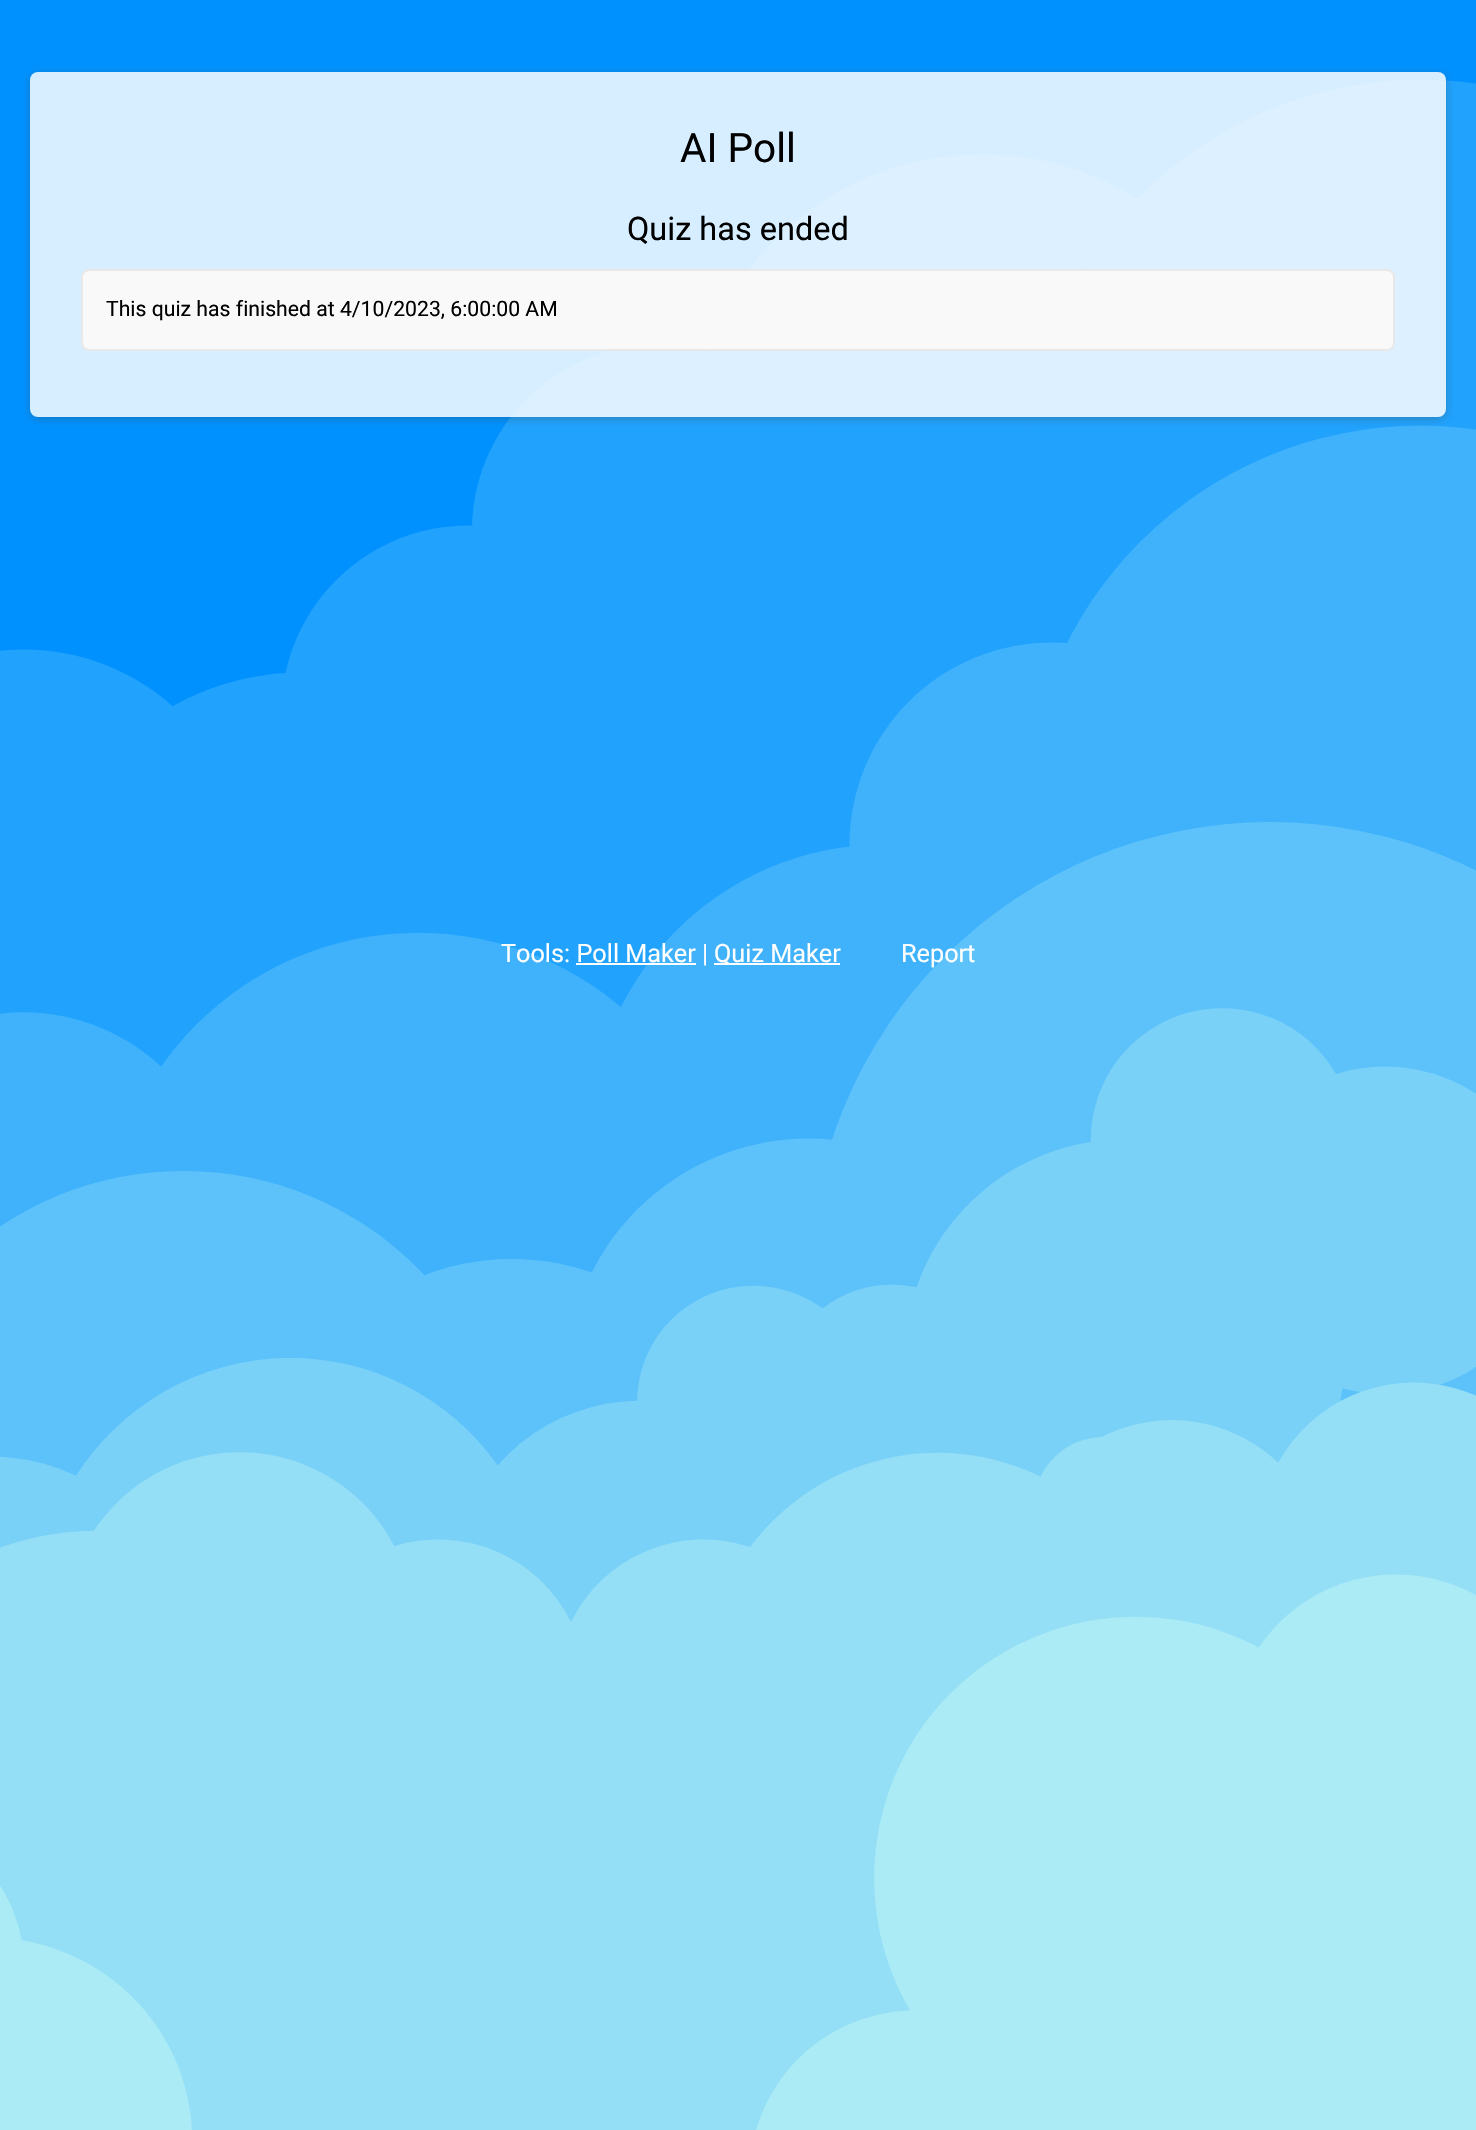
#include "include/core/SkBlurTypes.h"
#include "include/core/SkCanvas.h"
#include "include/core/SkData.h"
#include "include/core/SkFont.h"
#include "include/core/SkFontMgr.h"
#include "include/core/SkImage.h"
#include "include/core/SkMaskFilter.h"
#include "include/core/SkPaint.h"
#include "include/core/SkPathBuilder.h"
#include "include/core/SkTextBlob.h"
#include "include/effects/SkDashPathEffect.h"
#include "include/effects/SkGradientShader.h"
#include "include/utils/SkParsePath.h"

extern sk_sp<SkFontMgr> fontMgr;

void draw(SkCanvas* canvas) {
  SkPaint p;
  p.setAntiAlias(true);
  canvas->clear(SK_ColorWHITE);
  canvas->drawImageRect(SkImages::DeferredFromEncodedData(SkData::MakeFromFileName("images/1.png")), SkRect::MakeLTRB(0, 0, 1476, 2130), SkSamplingOptions());
  canvas->save();
  canvas->clipPath(SkPathBuilder(SkPathFillType::kEvenOdd).moveTo(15, 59).lineTo(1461, 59).lineTo(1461, 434).lineTo(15, 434).close().moveTo(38, 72).lineTo(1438, 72).cubicTo(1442.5f, 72, 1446, 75.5f, 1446, 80).lineTo(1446, 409).cubicTo(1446, 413.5f, 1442.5f, 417, 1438, 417).lineTo(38, 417).cubicTo(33.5f, 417, 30, 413.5f, 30, 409).lineTo(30, 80).cubicTo(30, 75.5f, 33.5f, 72, 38, 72).close().detach(), true);
  p.setColor(SkColorSetARGB(89, 57, 73, 76));
  p.setMaskFilter(SkMaskFilter::MakeBlur(kNormal_SkBlurStyle, 4.5f));
  canvas->drawRoundRect(SkRect::MakeLTRB(30, 74, 1446, 419), 8, 8, p);
  p.setMaskFilter(nullptr);
  canvas->restore();
  p.setColor(SkColorSetARGB(214, 255, 255, 255));
  canvas->drawRoundRect(SkRect::MakeLTRB(30, 72, 1446, 417), 8, 8, p);
  p.setColor(SkColorSetRGB(249, 249, 249));
  canvas->drawRoundRect(SkRect::MakeLTRB(82, 270, 1394, 350), 7, 7, p);
  p.setStyle(SkPaint::kStroke_Style);
  p.setStrokeWidth(2);
  p.setColor(SkColorSetRGB(232, 232, 232));
  canvas->drawRoundRect(SkRect::MakeLTRB(82, 270, 1394, 350), 7, 7, p);
  p.setStyle(SkPaint::kFill_Style);
  p.setColor(SK_ColorWHITE);
  canvas->drawRect(SkRect::MakeLTRB(714, 963, 840, 965), p);
  canvas->drawRect(SkRect::MakeLTRB(576, 963, 696, 965), p);
  SkFont font1(fontMgr->matchFamilyStyle("Roboto", SkFontStyle::Normal()), 40.5f);
  font1.setSubpixel(true);
  p.setColor(SK_ColorBLACK);
  canvas->drawString("AI Poll", 680, 162, font1, p);
  SkFont font2(fontMgr->matchFamilyStyle("Roboto", SkFontStyle::Normal()), 32.5f);
  font2.setSubpixel(true);
  canvas->drawString("Quiz has ended", 627, 240, font2, p);
  SkFont font3(fontMgr->matchFamilyStyle("Roboto", SkFontStyle::Normal()), 21.2f);
  font3.setSubpixel(true);
  canvas->drawString("This quiz has finished at 4/10/2023, 6:00:00 AM", 106, 316, font3, p);
  SkFont font4(fontMgr->matchFamilyStyle("Roboto", SkFontStyle::Normal()), 25.25f);
  font4.setSubpixel(true);
  p.setColor(SK_ColorWHITE);
  canvas->drawString("Tools: Poll Maker", 501, 962, font4, p);
  canvas->drawString("|", 702, 962, font4, p);
  canvas->drawString("Quiz Maker", 714, 962, font4, p);
  canvas->drawString("Report", 901, 962, font4, p);
}
